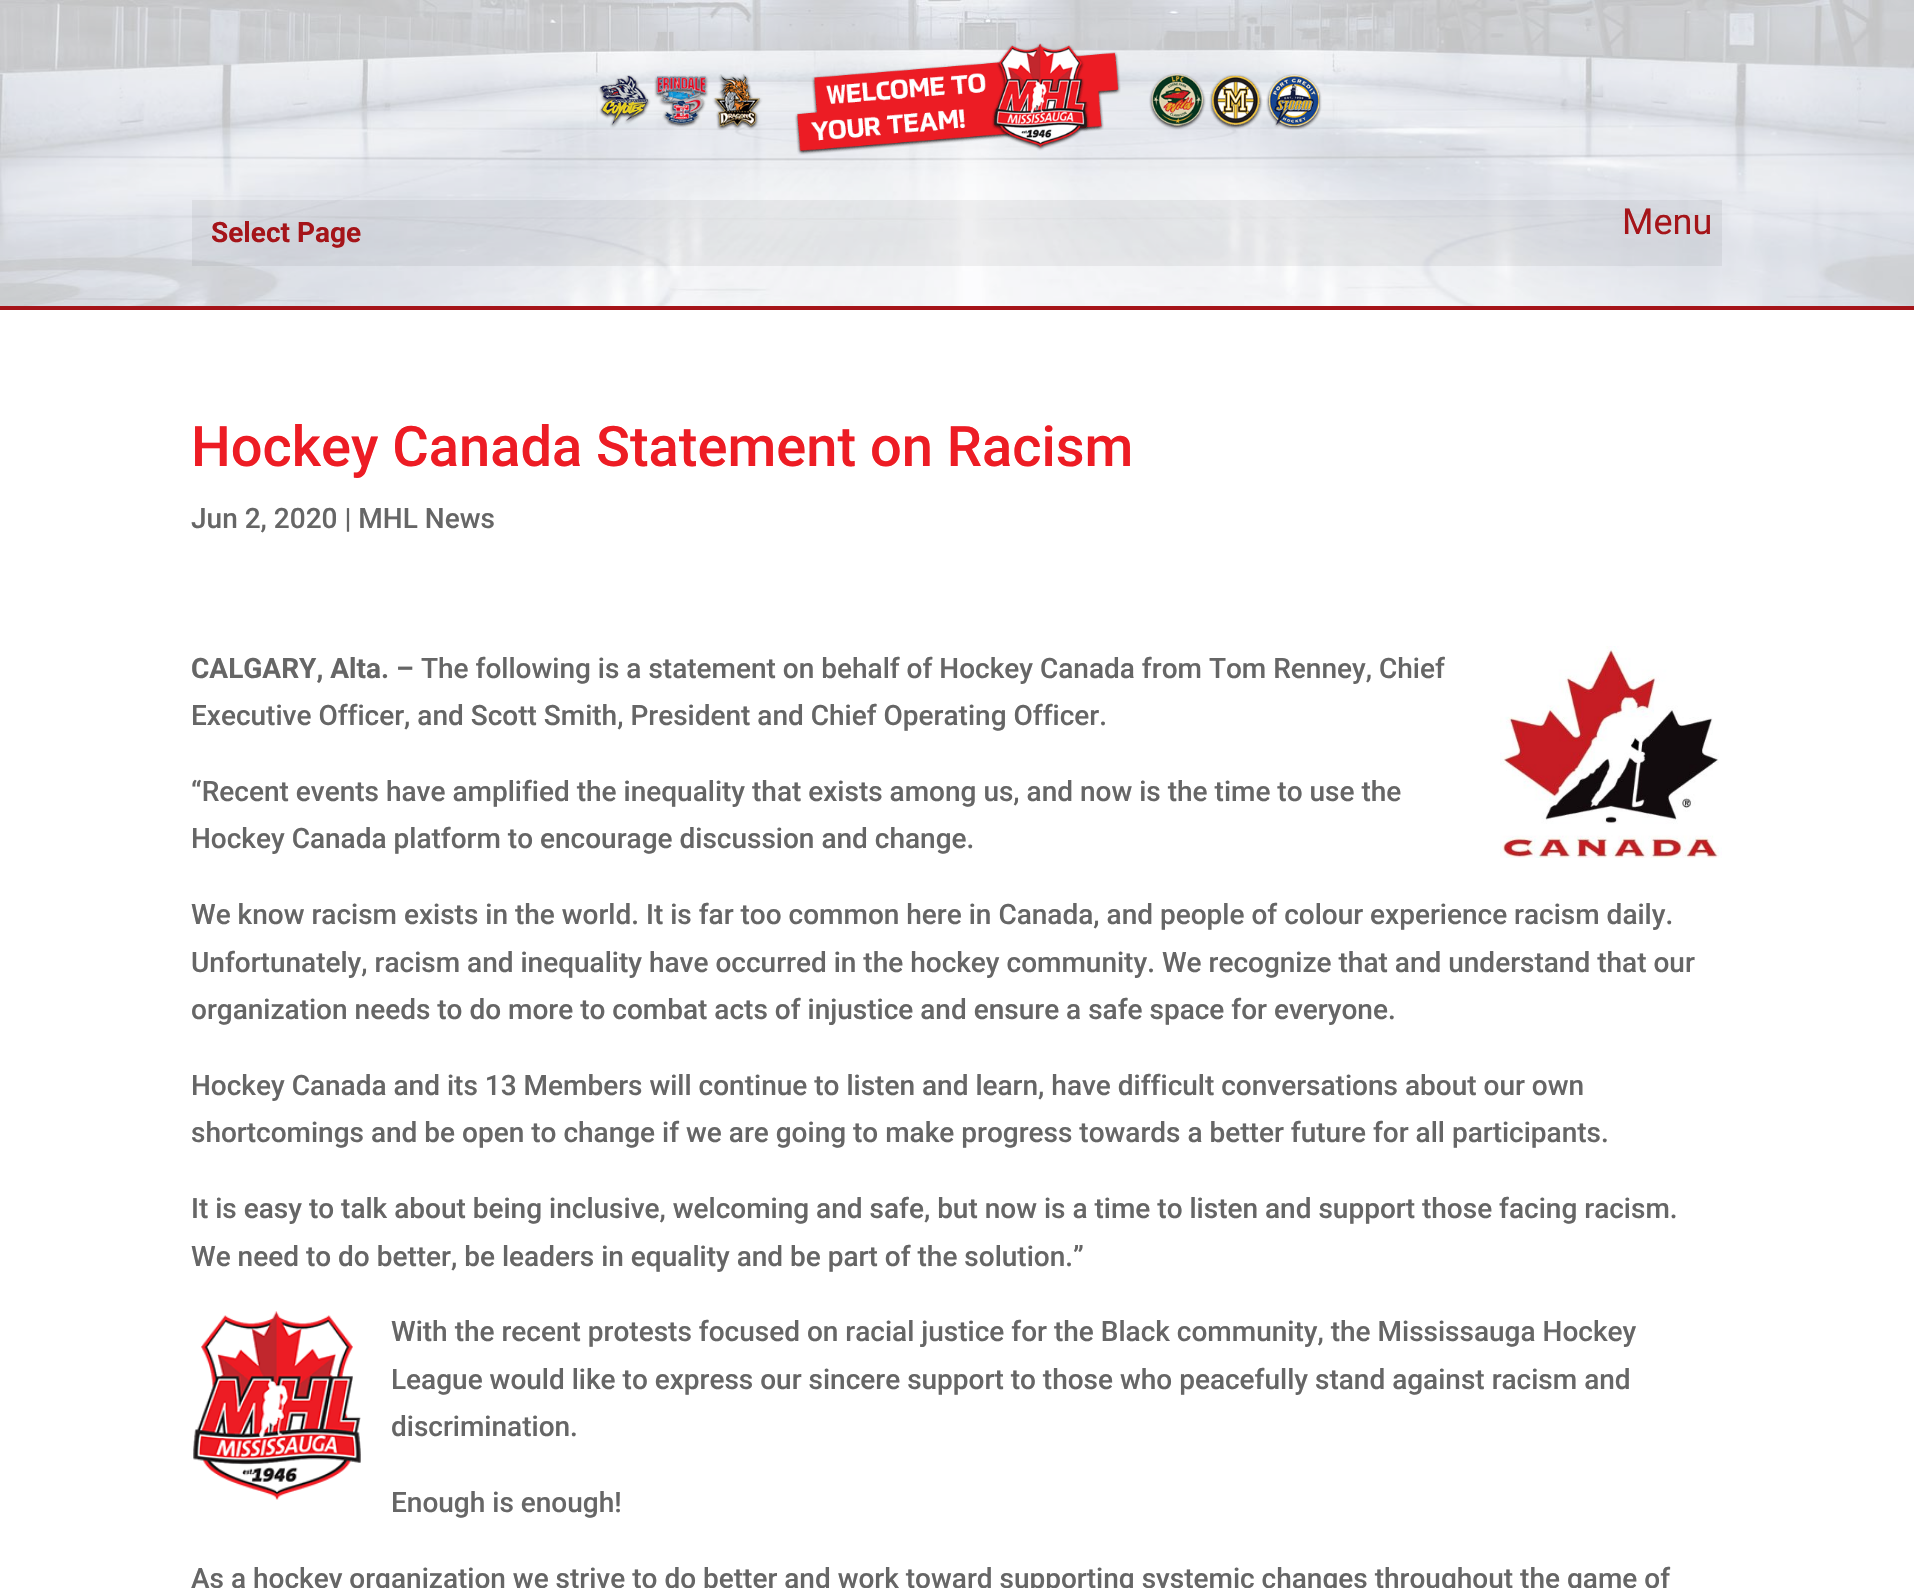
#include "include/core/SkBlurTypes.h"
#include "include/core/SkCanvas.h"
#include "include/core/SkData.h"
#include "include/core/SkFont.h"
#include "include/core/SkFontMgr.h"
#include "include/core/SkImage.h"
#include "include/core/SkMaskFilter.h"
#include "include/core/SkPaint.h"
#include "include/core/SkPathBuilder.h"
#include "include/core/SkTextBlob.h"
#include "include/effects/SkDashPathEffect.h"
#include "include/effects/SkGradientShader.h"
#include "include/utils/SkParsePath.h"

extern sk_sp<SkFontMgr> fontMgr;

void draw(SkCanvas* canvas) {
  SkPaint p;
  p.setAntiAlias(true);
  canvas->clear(SK_ColorWHITE);
  p.setColor(SkColorSetRGB(165, 20, 25));
  canvas->drawRect(SkRect::MakeLTRB(0, 306, 1914, 310), p);
  canvas->drawImageRect(SkImages::DeferredFromEncodedData(SkData::MakeFromFileName("images/1.png")), SkRect::MakeLTRB(0, 0, 1914, 306), SkSamplingOptions());
  canvas->drawImageRect(SkImages::DeferredFromEncodedData(SkData::MakeFromFileName("images/2.png")), SkRect::MakeLTRB(598, 43, 1322, 155), SkSamplingOptions());
  p.setColor(SkColorSetARGB(13, 0, 0, 0));
  canvas->drawRect(SkRect::MakeLTRB(192, 200, 1722, 266), p);
  canvas->drawImageRect(SkImages::DeferredFromEncodedData(SkData::MakeFromFileName("images/3.png")), SkRect::MakeLTRB(1500, 646, 1722, 858), SkSamplingOptions());
  canvas->drawImageRect(SkImages::DeferredFromEncodedData(SkData::MakeFromFileName("images/4.png")), SkRect::MakeLTRB(193, 1311, 361, 1500), SkSamplingOptions());
  SkFont font1(fontMgr->matchFamilyStyle("Roboto", SkFontStyle::Bold()), 28);
  font1.setSubpixel(true);
  p.setColor(SkColorSetRGB(165, 20, 25));
  canvas->drawString("Select Page", 211, 242, font1, p);
  SkFont font2(fontMgr->matchFamilyStyle("Roboto", SkFontStyle::Normal()), 36);
  font2.setSubpixel(true);
  canvas->drawString("Menu", 1622, 234, font2, p);
  SkFont font3(fontMgr->matchFamilyStyle("Roboto", SkFontStyle(500, SkFontStyle::kNormal_Width, SkFontStyle::kUpright_Slant)), 56);
  font3.setSubpixel(true);
  p.setColor(SkColorSetRGB(237, 28, 36));
  canvas->drawString("Hockey Canada Statement on Racism", 191, 466, font3, p);
  SkFont font4(fontMgr->matchFamilyStyle("Roboto", SkFontStyle(500, SkFontStyle::kNormal_Width, SkFontStyle::kUpright_Slant)), 28);
  font4.setSubpixel(true);
  p.setColor(SkColorSetRGB(102, 102, 102));
  canvas->drawString("Jun 2, 2020 | MHL News", 191, 528, font4, p);
  canvas->drawString("CALGARY, Alta. –", 191, 678, font1, p);
  canvas->drawString("The following is a statement on behalf of Hockey Canada from Tom Renney, Chief", 421, 678, font4, p);
  canvas->drawString("Executive Officer, and Scott Smith, President and Chief Operating Officer.", 191, 725, font4, p);
  canvas->drawString("“Recent events have amplified the inequality that exists among us, and now is the time to use the", 191, 801, font4, p);
  canvas->drawString("Hockey Canada platform to encourage discussion and change.", 191, 848, font4, p);
  canvas->drawString("We know racism exists in the world. It is far too common here in Canada, and people of colour experience racism daily.", 191, 924, font4, p);
  canvas->drawString("Unfortunately, racism and inequality have occurred in the hockey community. We recognize that and understand that our", 191, 972, font4, p);
  canvas->drawString("organization needs to do more to combat acts of injustice and ensure a safe space for everyone.", 191, 1019, font4, p);
  canvas->drawString("Hockey Canada and its 13 Members will continue to listen and learn, have difficult conversations about our own", 191, 1095, font4, p);
  canvas->drawString("shortcomings and be open to change if we are going to make progress towards a better future for all participants.", 191, 1142, font4, p);
  canvas->drawString("It is easy to talk about being inclusive, welcoming and safe, but now is a time to listen and support those facing racism.", 191, 1218, font4, p);
  canvas->drawString("We need to do better, be leaders in equality and be part of the solution.”", 191, 1266, font4, p);
  canvas->drawString("With the recent protests focused on racial justice for the Black community, the Mississauga Hockey", 391, 1341, font4, p);
  canvas->drawString("League would like to express our sincere support to those who peacefully stand against racism and", 391, 1389, font4, p);
  canvas->drawString("discrimination.", 391, 1436, font4, p);
  canvas->drawString("Enough is enough!", 391, 1512, font4, p);
  canvas->drawString("As a hockey organization we strive to do better and work toward supporting systemic changes throughout the game of", 191, 1588, font4, p);
}
